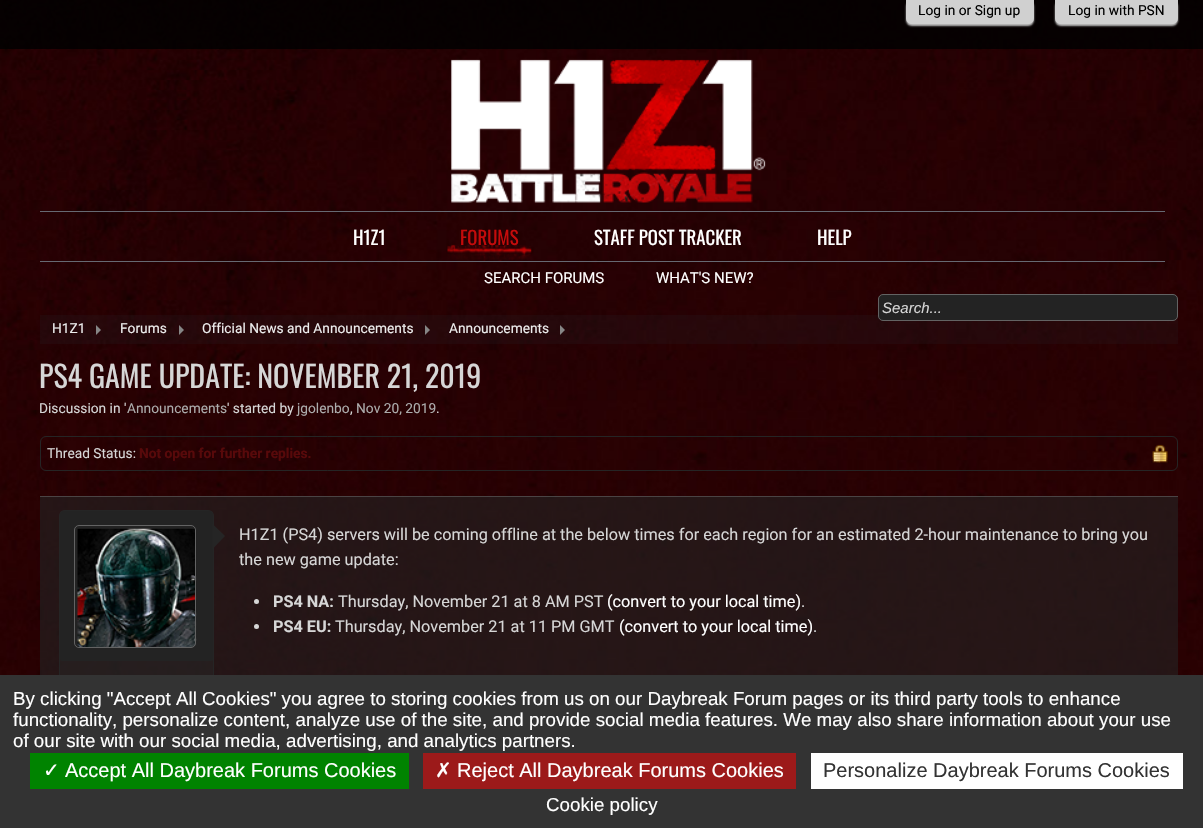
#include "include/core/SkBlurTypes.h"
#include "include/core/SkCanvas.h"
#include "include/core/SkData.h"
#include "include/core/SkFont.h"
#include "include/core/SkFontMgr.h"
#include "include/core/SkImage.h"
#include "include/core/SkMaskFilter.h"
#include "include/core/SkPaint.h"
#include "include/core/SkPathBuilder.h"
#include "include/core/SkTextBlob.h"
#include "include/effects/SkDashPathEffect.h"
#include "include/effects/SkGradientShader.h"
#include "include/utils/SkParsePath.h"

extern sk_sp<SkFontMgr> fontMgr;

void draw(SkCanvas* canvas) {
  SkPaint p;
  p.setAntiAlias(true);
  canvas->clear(SK_ColorWHITE);
  canvas->drawImageRect(SkImages::DeferredFromEncodedData(SkData::MakeFromFileName("images/1.png")), SkRect::MakeLTRB(0, 0, 1203, 675), SkSamplingOptions());
  p.setColor(SkColorSetARGB(217, 0, 0, 0));
  canvas->drawRect(SkRect::MakeLTRB(0, 0, 1203, 49), p);
  p.setColor(SkColorSetRGB(188, 188, 188));
  p.setMaskFilter(SkMaskFilter::MakeBlur(kNormal_SkBlurStyle, 1));
  canvas->drawRoundRect(SkRect::MakeLTRB(906, 1, 1034, 26), 6, 6, p);
  p.setMaskFilter(nullptr);
  p.setColor(SkColorSetRGB(208, 208, 208));
  canvas->drawPath(SkPathBuilder().moveTo(906, -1).lineTo(1034, -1).lineTo(1034, 18).cubicTo(1034, 21.5f, 1031.5f, 24, 1028, 24).lineTo(912, 24).cubicTo(908.5f, 24, 906, 21.5f, 906, 18).close().detach(), p);
  p.setColor(SkColorSetRGB(188, 188, 188));
  p.setMaskFilter(SkMaskFilter::MakeBlur(kNormal_SkBlurStyle, 1));
  canvas->drawRoundRect(SkRect::MakeLTRB(1055, 1, 1178, 26), 6, 6, p);
  p.setMaskFilter(nullptr);
  p.setColor(SkColorSetRGB(208, 208, 208));
  canvas->drawPath(SkPathBuilder().moveTo(1055, -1).lineTo(1178, -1).lineTo(1178, 18).cubicTo(1178, 21.5f, 1175.5f, 24, 1172, 24).lineTo(1061, 24).cubicTo(1057.5f, 24, 1055, 21.5f, 1055, 18).close().detach(), p);
  canvas->drawImageRect(SkImages::DeferredFromEncodedData(SkData::MakeFromFileName("images/2.png")), SkRect::MakeLTRB(451, 59, 766, 203), SkSamplingOptions());
  p.setColor(SkColorSetRGB(102, 105, 114));
  canvas->drawRect(SkRect::MakeLTRB(40, 211, 1165, 212), p);
  canvas->drawImageRect(SkImages::DeferredFromEncodedData(SkData::MakeFromFileName("images/3.png")), SkRect::MakeLTRB(447, 244, 532, 261), SkSamplingOptions());
  canvas->drawRect(SkRect::MakeLTRB(40, 261, 1165, 262), p);
  p.setColor(SkColorSetARGB(51, 34, 35, 40));
  canvas->drawRect(SkRect::MakeLTRB(40, 315, 1178, 344), p);
  p.setColor(SkColorSetRGB(35, 35, 35));
  canvas->drawRoundRect(SkRect::MakeLTRB(878.5f, 294.5f, 1177.5f, 320.5f), 4.5f, 4.5f, p);
  p.setStyle(SkPaint::kStroke_Style);
  p.setStrokeWidth(1);
  p.setColor(SkColorSetRGB(99, 99, 99));
  canvas->drawRoundRect(SkRect::MakeLTRB(878.5f, 294.5f, 1177.5f, 320.5f), 4.5f, 4.5f, p);
  p.setStyle(SkPaint::kFill_Style);
  p.setColor(SkColorSetRGB(134, 134, 134));
  canvas->drawPath(SkPathBuilder().moveTo(96, 335).lineTo(96, 325).lineTo(101, 330).close().detach(), p);
  canvas->drawPath(SkPathBuilder().moveTo(179, 335).lineTo(179, 325).lineTo(184, 330).close().detach(), p);
  canvas->drawPath(SkPathBuilder().moveTo(425, 335).lineTo(425, 325).lineTo(430, 330).close().detach(), p);
  canvas->drawPath(SkPathBuilder().moveTo(560, 335).lineTo(560, 325).lineTo(565, 330).close().detach(), p);
  p.setStyle(SkPaint::kStroke_Style);
  p.setColor(SkColorSetRGB(37, 37, 37));
  canvas->drawRoundRect(SkRect::MakeLTRB(40.5f, 436.5f, 1177.5f, 470.5f), 5.5f, 5.5f, p);
  canvas->drawImageRect(SkImages::DeferredFromEncodedData(SkData::MakeFromFileName("images/4.png")), SkRect::MakeLTRB(1151, 444, 1169, 463), SkSamplingOptions());
  p.setStyle(SkPaint::kFill_Style);
  p.setColor(SkColorSetARGB(153, 35, 35, 35));
  canvas->drawRect(SkRect::MakeLTRB(40, 496, 1178, 675), p);
  p.setColor(SkColorSetARGB(153, 99, 99, 99));
  canvas->drawRect(SkRect::MakeLTRB(40, 496, 1178, 497), p);
  p.setColor(SkColorSetARGB(128, 38, 38, 38));
  canvas->drawRoundRect(SkRect::MakeLTRB(59.5f, 510.5f, 213.5f, 718.5f), 5.5f, 5.5f, p);
  p.setStyle(SkPaint::kStroke_Style);
  p.setColor(SkColorSetRGB(37, 37, 37));
  canvas->drawRoundRect(SkRect::MakeLTRB(59.5f, 510.5f, 213.5f, 718.5f), 5.5f, 5.5f, p);
  p.setStyle(SkPaint::kFill_Style);
  p.setColor(SkColorSetRGB(35, 35, 35));
  canvas->drawRoundRect(SkRect::MakeLTRB(60, 511, 213, 661), 2.5f, 2.5f, p);
  canvas->drawImageRect(SkImages::DeferredFromEncodedData(SkData::MakeFromFileName("images/5.png")), SkRect::MakeLTRB(77, 528, 197, 648), SkSamplingOptions());
  p.setStyle(SkPaint::kStroke_Style);
  p.setColor(SkColorSetRGB(99, 99, 99));
  canvas->drawRoundRect(SkRect::MakeLTRB(74.5f, 525.5f, 195.5f, 647.5f), 4.5f, 4.5f, p);
  p.setStyle(SkPaint::kFill_Style);
  p.setColor(SkColorSetRGB(37, 37, 37));
  canvas->drawPath(SkPathBuilder().moveTo(212.5f, 549).lineTo(212.5f, 524).lineTo(225, 536).close().detach(), p);
  p.setColor(SkColorSetRGB(214, 214, 214));
  canvas->drawCircle(256.5f, 601.5f, 2.5f, p);
  canvas->drawCircle(256.5f, 626.5f, 2.5f, p);
  p.setColor(SkColorSetRGB(51, 51, 51));
  canvas->drawRect(SkRect::MakeLTRB(0, 675, 1203, 828), p);
  p.setColor(SkColorSetRGB(0, 131, 0));
  canvas->drawRect(SkRect::MakeLTRB(30, 753, 409, 789), p);
  p.setColor(SkColorSetRGB(156, 26, 26));
  canvas->drawRect(SkRect::MakeLTRB(423, 753, 796, 789), p);
  p.setColor(SK_ColorWHITE);
  canvas->drawRect(SkRect::MakeLTRB(811, 753, 1183, 789), p);
  SkFont font1(fontMgr->matchFamilyStyle("Roboto", SkFontStyle::Normal()), 13.75f);
  font1.setSubpixel(true);
  p.setColor(SK_ColorBLACK);
  canvas->drawString("Log in or Sign up", 918, 15, font1, p);
  canvas->drawString("Log in with PSN", 1068, 15, font1, p);
  SkFont font2(fontMgr->matchFamilyStyle("Oswald", SkFontStyle::Normal()), 18.75f);
  font2.setSubpixel(true);
  p.setColor(SK_ColorWHITE);
  canvas->drawString("H1Z1", 353, 245, font2, p);
  p.setColor(SkColorSetRGB(197, 11, 11));
  canvas->drawString("FORUMS", 460, 245, font2, p);
  SkFont font3(fontMgr->matchFamilyStyle("Roboto", SkFontStyle::Normal()), 15);
  font3.setSubpixel(true);
  p.setColor(SK_ColorWHITE);
  canvas->drawString("SEARCH FORUMS", 484, 283, font3, p);
  canvas->drawString("WHAT'S NEW?", 656, 283, font3, p);
  canvas->drawString("STAFF POST TRACKER", 594, 245, font2, p);
  canvas->drawString("HELP", 817, 245, font2, p);
  SkFont font4(fontMgr->matchFamilyStyle("Liberation Sans", SkFontStyle::Italic()), 15);
  font4.setSubpixel(true);
  p.setColor(SkColorSetRGB(214, 214, 214));
  canvas->drawString("Search...", 882, 313, font4, p);
  p.setColor(SkColorSetRGB(237, 237, 237));
  canvas->drawString("H1Z1", 52, 333, font1, p);
  canvas->drawString("Forums", 120, 333, font1, p);
  canvas->drawString("Official News and Announcements", 202, 333, font1, p);
  canvas->drawString("Announcements", 449, 333, font1, p);
  SkFont font5(fontMgr->matchFamilyStyle("Oswald", SkFontStyle::Normal()), 30);
  font5.setSubpixel(true);
  p.setColor(SkColorSetRGB(214, 214, 214));
  canvas->drawString("PS4 GAME UPDATE: NOVEMBER 21, 2019", 39, 388, font5, p);
  canvas->drawString("Discussion in '", 39, 413, font1, p);
  p.setColor(SkColorSetRGB(172, 172, 172));
  canvas->drawString("Announcements", 127, 413, font1, p);
  p.setColor(SkColorSetRGB(214, 214, 214));
  canvas->drawString("' started by", 227, 413, font1, p);
  p.setColor(SkColorSetRGB(172, 172, 172));
  canvas->drawString("jgolenbo", 297, 413, font1, p);
  p.setColor(SkColorSetRGB(214, 214, 214));
  canvas->drawString(",", 350, 413, font1, p);
  p.setColor(SkColorSetRGB(172, 172, 172));
  canvas->drawString("Nov 20, 2019", 356, 413, font1, p);
  p.setColor(SkColorSetRGB(214, 214, 214));
  canvas->drawString(".", 436, 413, font1, p);
  canvas->drawString("Thread Status:", 47, 458, font1, p);
  SkFont font6(fontMgr->matchFamilyStyle("Roboto", SkFontStyle::Bold()), 13.75f);
  font6.setSubpixel(true);
  p.setColor(SkColorSetRGB(88, 9, 10));
  canvas->drawString("Not open for further replies.", 139, 458, font6, p);
  SkFont font7(fontMgr->matchFamilyStyle("Roboto", SkFontStyle::Normal()), 16.25f);
  font7.setSubpixel(true);
  p.setColor(SkColorSetRGB(214, 214, 214));
  canvas->drawString("H1Z1 (PS4) servers will be coming offline at the below times for each region for an estimated 2-hour maintenance to bring you", 239, 540, font7, p);
  canvas->drawString("the new game update:", 239, 565, font7, p);
  SkFont font8(fontMgr->matchFamilyStyle("Roboto", SkFontStyle::Bold()), 16.25f);
  font8.setSubpixel(true);
  canvas->drawString("PS4 NA:", 273, 607, font8, p);
  canvas->drawString("Thursday, November 21 at 8 AM PST", 338, 607, font7, p);
  p.setColor(SK_ColorWHITE);
  canvas->drawString("(convert to your local time)", 607, 607, font7, p);
  p.setColor(SkColorSetRGB(214, 214, 214));
  canvas->drawString(".", 801, 607, font7, p);
  canvas->drawString("PS4 EU:", 273, 632, font8, p);
  canvas->drawString("Thursday, November 21 at 11 PM GMT", 335, 632, font7, p);
  p.setColor(SK_ColorWHITE);
  canvas->drawString("(convert to your local time)", 619, 632, font7, p);
  p.setColor(SkColorSetRGB(214, 214, 214));
  canvas->drawString(".", 813, 632, font7, p);
  SkFont font9(fontMgr->matchFamilyStyle("Liberation Sans", SkFontStyle::Normal()), 18.75f);
  font9.setSubpixel(true);
  p.setColor(SK_ColorWHITE);
  canvas->drawString("By clicking \"Accept All Cookies\" you agree to storing cookies from us on our Daybreak Forum pages or its third party tools to enhance", 13, 705, font9, p);
  canvas->drawString("functionality, personalize content, analyze use of the site, and provide social media features. We may also share information about your use", 13, 726, font9, p);
  canvas->drawString("of our site with our social media, advertising, and analytics partners.", 13, 747, font9, p);
  SkFont font10(fontMgr->matchFamilyStyle("DejaVu Sans", SkFontStyle::Normal()), 20);
  font10.setSubpixel(true);
  canvas->drawString("✓", 43, 777, font10, p);
  SkFont font11(fontMgr->matchFamilyStyle("Liberation Sans", SkFontStyle::Normal()), 20);
  font11.setSubpixel(true);
  canvas->drawString("Accept All Daybreak Forums Cookies", 65, 777, font11, p);
  canvas->drawString("✗", 435, 777, font10, p);
  canvas->drawString("Reject All Daybreak Forums Cookies", 457, 777, font11, p);
  p.setColor(SkColorSetRGB(51, 51, 51));
  canvas->drawString("Personalize Daybreak Forums Cookies", 823, 777, font11, p);
  p.setColor(SK_ColorWHITE);
  canvas->drawString("Cookie policy", 546, 811, font9, p);
}
